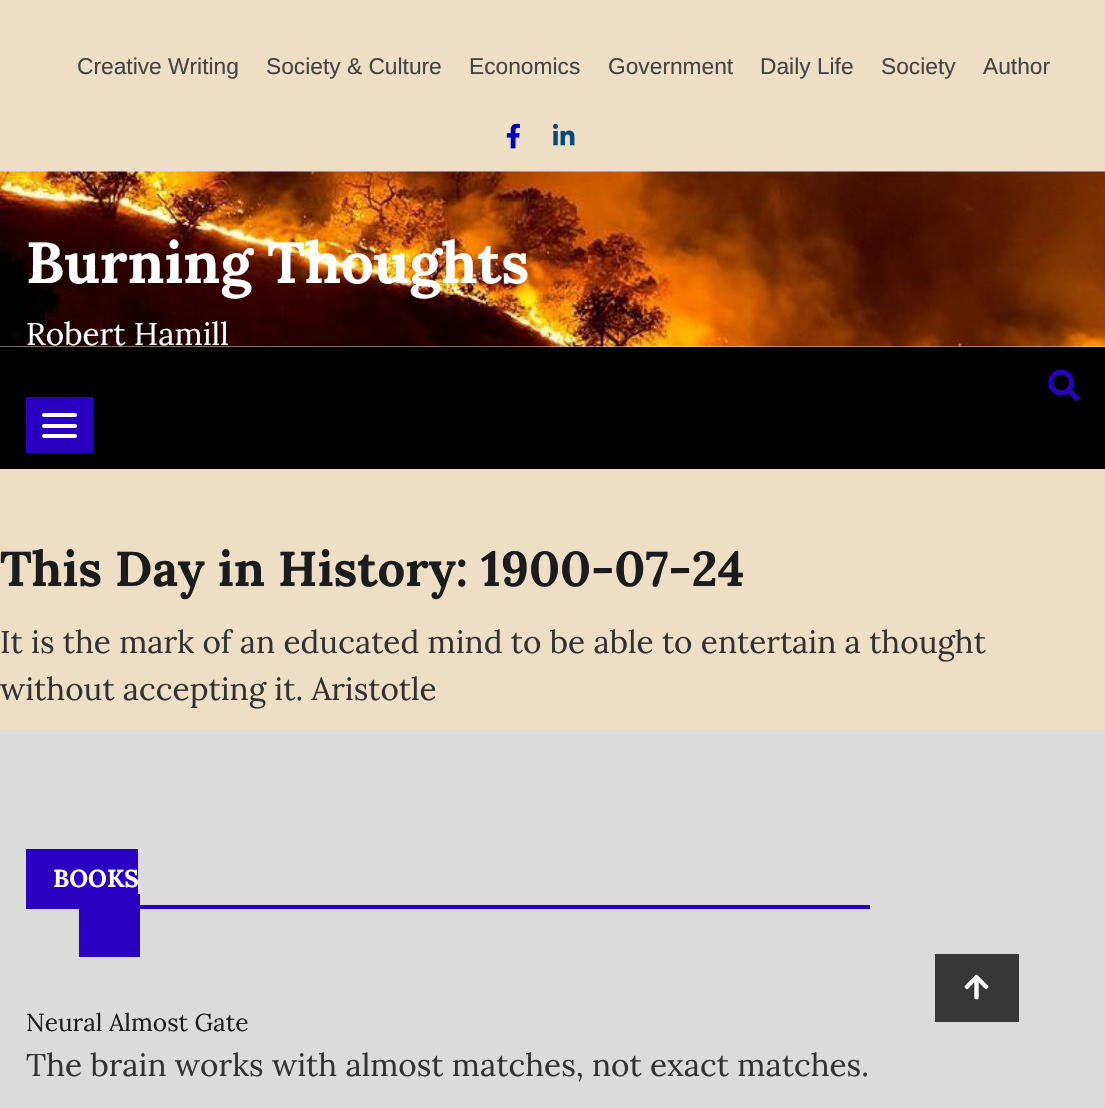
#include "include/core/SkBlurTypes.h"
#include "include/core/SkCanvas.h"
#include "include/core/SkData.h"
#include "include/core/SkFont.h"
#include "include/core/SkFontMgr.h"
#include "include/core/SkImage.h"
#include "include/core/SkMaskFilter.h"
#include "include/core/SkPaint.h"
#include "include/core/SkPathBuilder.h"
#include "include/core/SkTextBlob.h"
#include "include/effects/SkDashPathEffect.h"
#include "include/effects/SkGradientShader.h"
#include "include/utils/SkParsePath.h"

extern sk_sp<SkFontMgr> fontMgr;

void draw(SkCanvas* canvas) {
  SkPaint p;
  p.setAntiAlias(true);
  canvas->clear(SkColorSetRGB(239, 222, 198));
  p.setColor(SkColorSetRGB(222, 222, 222));
  canvas->drawRect(SkRect::MakeLTRB(0, 170, 1105, 172), p);
  canvas->drawImageRect(SkImages::DeferredFromEncodedData(SkData::MakeFromFileName("images/1.png")), SkRect::MakeLTRB(506, 123, 520, 149), SkSamplingOptions());
  canvas->drawImageRect(SkImages::DeferredFromEncodedData(SkData::MakeFromFileName("images/2.png")), SkRect::MakeLTRB(553, 123, 575, 146), SkSamplingOptions());
  canvas->drawImageRect(SkImages::DeferredFromEncodedData(SkData::MakeFromFileName("images/3.png")), SkRect::MakeLTRB(0, 171, 1105, 347), SkSamplingOptions());
  p.setColor(SK_ColorBLACK);
  canvas->drawRect(SkRect::MakeLTRB(0, 347, 1105, 469), p);
  canvas->drawImageRect(SkImages::DeferredFromEncodedData(SkData::MakeFromFileName("images/4.png")), SkRect::MakeLTRB(1048, 369, 1080, 402), SkSamplingOptions());
  p.setColor(SkColorSetRGB(41, 0, 193));
  canvas->drawRect(SkRect::MakeLTRB(26, 397, 93, 453), p);
  p.setColor(SK_ColorWHITE);
  canvas->drawRoundRect(SkRect::MakeLTRB(42, 413, 77, 417), 2, 2, p);
  canvas->drawRoundRect(SkRect::MakeLTRB(42, 424, 77, 428), 2, 2, p);
  canvas->drawRoundRect(SkRect::MakeLTRB(42, 434, 77, 438), 2, 2, p);
  p.setColor(SkColorSetRGB(219, 219, 219));
  canvas->drawRect(SkRect::MakeLTRB(0, 730, 1105, 1108), p);
  p.setColor(SkColorSetRGB(41, 0, 193));
  canvas->drawRect(SkRect::MakeLTRB(26, 905, 870, 909), p);
  canvas->drawRect(SkRect::MakeLTRB(26, 849, 138, 905), p);
  canvas->drawRect(SkRect::MakeLTRB(79, 894, 140, 957), p);
  p.setColor(SkColorSetRGB(55, 55, 55));
  canvas->drawRect(SkRect::MakeLTRB(935, 954, 1019, 1022), p);
  canvas->drawImageRect(SkImages::DeferredFromEncodedData(SkData::MakeFromFileName("images/5.png")), SkRect::MakeLTRB(964, 974, 989, 1000), SkSamplingOptions());
  SkFont font1(fontMgr->matchFamilyStyle("Liberation Sans", SkFontStyle::Normal()), 22.75f);
  font1.setSubpixel(true);
  p.setColor(SkColorSetRGB(68, 68, 68));
  canvas->drawString("Creative Writing", 77, 74, font1, p);
  canvas->drawString("Society & Culture", 266, 74, font1, p);
  canvas->drawString("Economics", 469, 74, font1, p);
  canvas->drawString("Government", 608, 74, font1, p);
  canvas->drawString("Daily Life", 760, 74, font1, p);
  canvas->drawString("Society", 881, 74, font1, p);
  canvas->drawString("Author", 983, 74, font1, p);
  SkFont font2(fontMgr->matchFamilyStyle("Lora", SkFontStyle::Bold()), 57.75f);
  font2.setSubpixel(true);
  p.setColor(SK_ColorWHITE);
  canvas->drawString("Burning Thoughts", 26, 283, font2, p);
  SkFont font3(fontMgr->matchFamilyStyle("Lora", SkFontStyle::Normal()), 31.5f);
  font3.setSubpixel(true);
  canvas->drawString("Robert Hamill", 26, 345, font3, p);
  SkFont font4(fontMgr->matchFamilyStyle("Lora", SkFontStyle::Bold()), 49);
  font4.setSubpixel(true);
  p.setColor(SkColorSetRGB(28, 28, 28));
  canvas->drawString("This Day in History: 1900-07-24", 0, 586, font4, p);
  p.setColor(SkColorSetRGB(50, 50, 50));
  canvas->drawString("It is the mark of an educated mind to be able to entertain a thought", 0, 653, font3, p);
  canvas->drawString("without accepting it. Aristotle", 0, 700, font3, p);
  SkFont font5(fontMgr->matchFamilyStyle("Lora", SkFontStyle::Bold()), 24.5f);
  font5.setSubpixel(true);
  p.setColor(SK_ColorWHITE);
  canvas->drawString("BOOKS", 53, 887, font5, p);
  SkFont font6(fontMgr->matchFamilyStyle("Lora", SkFontStyle::Normal()), 24.5f);
  font6.setSubpixel(true);
  p.setColor(SkColorSetRGB(28, 28, 28));
  canvas->drawString("Neural Almost Gate", 26, 1031, font6, p);
  p.setColor(SkColorSetRGB(50, 50, 50));
  canvas->drawString("The brain works with almost matches, not exact matches.", 26, 1076, font3, p);
}
